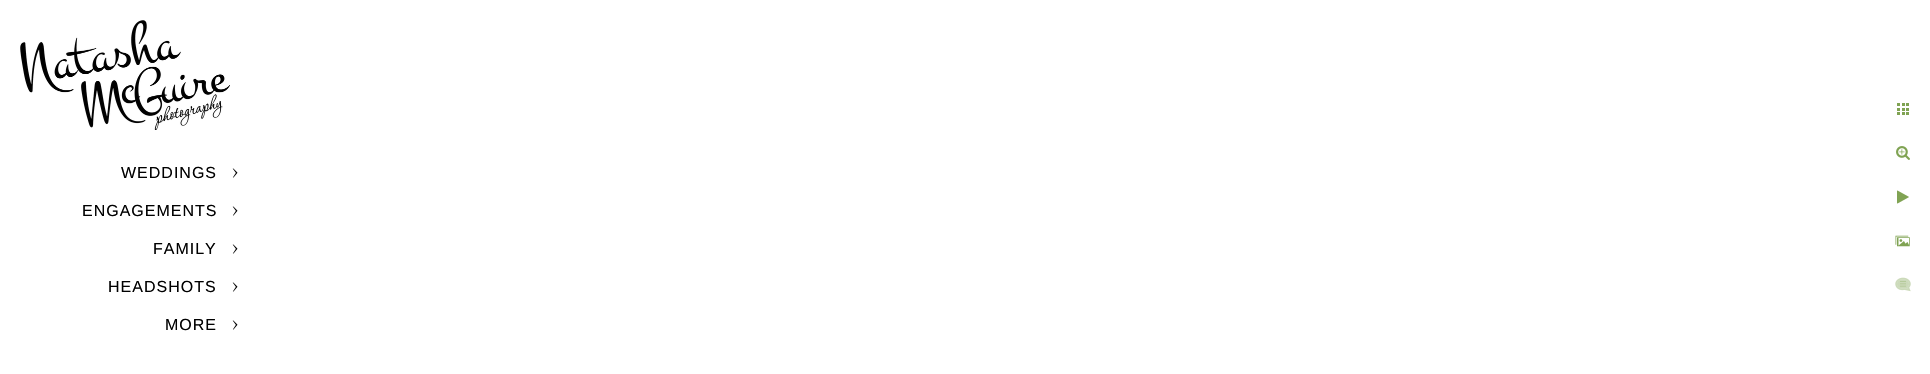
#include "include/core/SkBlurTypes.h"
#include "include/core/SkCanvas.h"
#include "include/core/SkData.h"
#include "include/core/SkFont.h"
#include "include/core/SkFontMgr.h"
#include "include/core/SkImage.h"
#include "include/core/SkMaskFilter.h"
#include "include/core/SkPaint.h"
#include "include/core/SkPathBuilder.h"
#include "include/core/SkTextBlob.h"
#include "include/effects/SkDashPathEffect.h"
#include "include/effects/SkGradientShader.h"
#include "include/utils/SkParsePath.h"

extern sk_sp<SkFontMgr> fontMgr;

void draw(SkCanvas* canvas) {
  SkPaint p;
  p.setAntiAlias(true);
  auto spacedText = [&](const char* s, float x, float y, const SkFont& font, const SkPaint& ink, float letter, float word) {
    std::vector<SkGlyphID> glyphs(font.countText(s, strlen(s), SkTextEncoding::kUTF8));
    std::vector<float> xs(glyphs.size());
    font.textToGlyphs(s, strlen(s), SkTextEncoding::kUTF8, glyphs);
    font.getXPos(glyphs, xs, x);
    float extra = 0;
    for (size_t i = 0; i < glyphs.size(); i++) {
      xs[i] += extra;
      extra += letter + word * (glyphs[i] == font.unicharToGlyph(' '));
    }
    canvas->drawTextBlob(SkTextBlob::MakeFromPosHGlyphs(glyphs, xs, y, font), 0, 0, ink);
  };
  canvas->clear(SK_ColorWHITE);
  canvas->drawImageRect(SkImages::DeferredFromEncodedData(SkData::MakeFromFileName("images/1.png")), SkRect::MakeLTRB(20, 20, 230, 130), SkSamplingOptions());
  canvas->drawImageRect(SkImages::DeferredFromEncodedData(SkData::MakeFromFileName("images/2.png")), SkRect::MakeLTRB(232, 168, 238, 178), SkSamplingOptions());
  canvas->drawImageRect(SkImages::DeferredFromEncodedData(SkData::MakeFromFileName("images/2.png")), SkRect::MakeLTRB(232, 206, 238, 216), SkSamplingOptions());
  canvas->drawImageRect(SkImages::DeferredFromEncodedData(SkData::MakeFromFileName("images/2.png")), SkRect::MakeLTRB(232, 244, 238, 254), SkSamplingOptions());
  canvas->drawImageRect(SkImages::DeferredFromEncodedData(SkData::MakeFromFileName("images/2.png")), SkRect::MakeLTRB(232, 282, 238, 292), SkSamplingOptions());
  canvas->drawImageRect(SkImages::DeferredFromEncodedData(SkData::MakeFromFileName("images/2.png")), SkRect::MakeLTRB(232, 320, 238, 330), SkSamplingOptions());
  canvas->drawImageRect(SkImages::DeferredFromEncodedData(SkData::MakeFromFileName("images/3.png")), SkRect::MakeLTRB(1897, 103, 1909, 115), SkSamplingOptions());
  canvas->drawImageRect(SkImages::DeferredFromEncodedData(SkData::MakeFromFileName("images/4.png")), SkRect::MakeLTRB(1896, 146, 1910, 160), SkSamplingOptions());
  canvas->drawImageRect(SkImages::DeferredFromEncodedData(SkData::MakeFromFileName("images/5.png")), SkRect::MakeLTRB(1897, 190, 1909, 204), SkSamplingOptions());
  canvas->drawImageRect(SkImages::DeferredFromEncodedData(SkData::MakeFromFileName("images/6.png")), SkRect::MakeLTRB(1895, 235, 1910, 247), SkSamplingOptions());
  canvas->drawImageRect(SkImages::DeferredFromEncodedData(SkData::MakeFromFileName("images/7.png")), SkRect::MakeLTRB(1895, 277, 1911, 292), SkSamplingOptions());
  SkFont font1(fontMgr->matchFamilyStyle("Liberation Sans", SkFontStyle::Normal()), 16);
  font1.setSubpixel(true);
  p.setColor(SK_ColorBLACK);
  spacedText("WEDDINGS", 121, 178, font1, p, 1, 0);
  spacedText("ENGAGEMENTS", 82, 216, font1, p, 1, 0);
  spacedText("FAMILY", 153, 254, font1, p, 1, 0);
  spacedText("HEADSHOTS", 108, 292, font1, p, 1, 0);
  spacedText("MORE", 165, 330, font1, p, 1, 0);
}
